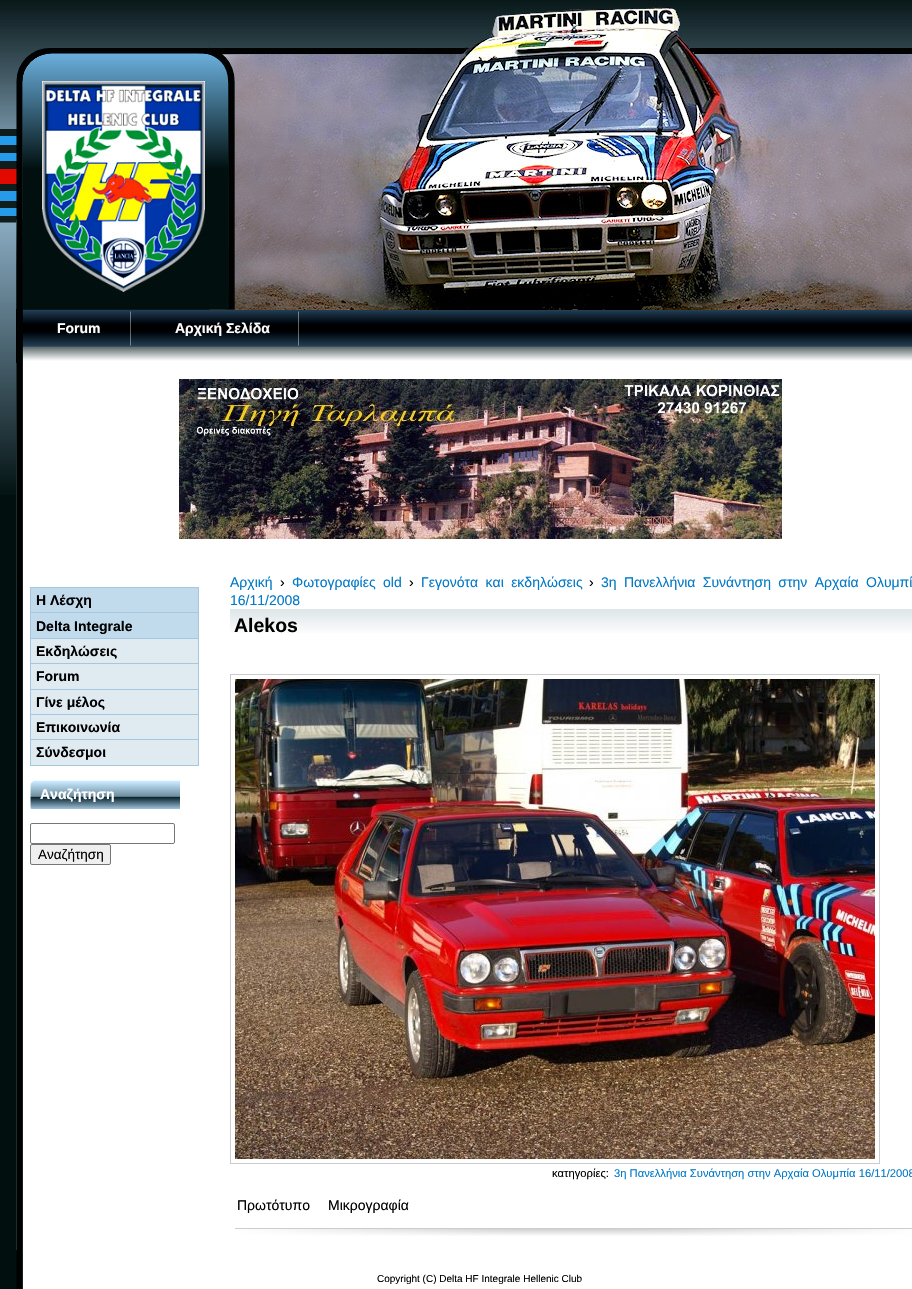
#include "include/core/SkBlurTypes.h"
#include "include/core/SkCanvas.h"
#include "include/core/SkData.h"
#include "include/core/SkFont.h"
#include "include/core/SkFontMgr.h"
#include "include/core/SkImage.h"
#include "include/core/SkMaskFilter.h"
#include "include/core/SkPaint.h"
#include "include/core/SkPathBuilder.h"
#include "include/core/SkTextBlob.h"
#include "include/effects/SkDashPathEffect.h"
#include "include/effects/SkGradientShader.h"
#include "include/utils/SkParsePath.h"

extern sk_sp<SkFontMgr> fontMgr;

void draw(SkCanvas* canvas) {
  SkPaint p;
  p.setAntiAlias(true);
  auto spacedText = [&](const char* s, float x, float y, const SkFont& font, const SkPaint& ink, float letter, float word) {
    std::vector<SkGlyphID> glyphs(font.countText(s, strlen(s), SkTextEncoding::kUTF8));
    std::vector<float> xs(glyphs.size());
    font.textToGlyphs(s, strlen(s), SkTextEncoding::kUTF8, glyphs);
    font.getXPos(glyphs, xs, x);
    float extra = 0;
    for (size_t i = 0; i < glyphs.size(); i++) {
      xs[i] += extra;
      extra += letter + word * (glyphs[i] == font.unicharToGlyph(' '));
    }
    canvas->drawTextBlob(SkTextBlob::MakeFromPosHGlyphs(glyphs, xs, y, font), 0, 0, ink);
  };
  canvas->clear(SkColorSetRGB(1, 15, 15));
  canvas->drawImageRect(SkImages::DeferredFromEncodedData(SkData::MakeFromFileName("images/1.png")), SkRect::MakeLTRB(0, 363, 16, 495), SkSamplingOptions());
  canvas->drawImageRect(SkImages::DeferredFromEncodedData(SkData::MakeFromFileName("images/2.png")), SkRect::MakeLTRB(0, 0, 912, 363), SkSamplingOptions());
  canvas->drawImageRect(SkImages::DeferredFromEncodedData(SkData::MakeFromFileName("images/3.png")), SkRect::MakeLTRB(130, 311, 131, 346), SkSamplingOptions());
  canvas->drawImageRect(SkImages::DeferredFromEncodedData(SkData::MakeFromFileName("images/4.png")), SkRect::MakeLTRB(298, 310, 299, 346), SkSamplingOptions());
  canvas->drawImageRect(SkImages::DeferredFromEncodedData(SkData::MakeFromFileName("images/5.png")), SkRect::MakeLTRB(16, 363, 912, 1250), SkSamplingOptions());
  canvas->drawImageRect(SkImages::DeferredFromEncodedData(SkData::MakeFromFileName("images/6.png")), SkRect::MakeLTRB(179, 379, 782, 539), SkSamplingOptions());
  p.setColor(SkColorSetRGB(165, 199, 224));
  canvas->drawRect(SkRect::MakeLTRB(30, 587, 199, 588), p);
  p.setColor(SkColorSetRGB(193, 219, 237));
  canvas->drawRect(SkRect::MakeLTRB(31, 588, 198, 612), p);
  p.setColor(SkColorSetRGB(165, 199, 224));
  canvas->drawRect(SkRect::MakeLTRB(198, 588, 199, 766), p);
  canvas->drawRect(SkRect::MakeLTRB(30, 612, 199, 613), p);
  canvas->drawRect(SkRect::MakeLTRB(30, 588, 31, 613), p);
  p.setColor(SkColorSetRGB(193, 219, 237));
  canvas->drawRect(SkRect::MakeLTRB(31, 613, 198, 638), p);
  p.setColor(SkColorSetRGB(165, 199, 224));
  canvas->drawRect(SkRect::MakeLTRB(30, 638, 199, 639), p);
  canvas->drawRect(SkRect::MakeLTRB(30, 613, 31, 639), p);
  p.setColor(SkColorSetRGB(223, 234, 241));
  canvas->drawRect(SkRect::MakeLTRB(31, 639, 198, 663), p);
  p.setColor(SkColorSetRGB(165, 199, 224));
  canvas->drawRect(SkRect::MakeLTRB(30, 663, 199, 664), p);
  canvas->drawRect(SkRect::MakeLTRB(30, 639, 31, 664), p);
  p.setColor(SkColorSetRGB(223, 234, 241));
  canvas->drawRect(SkRect::MakeLTRB(31, 664, 198, 689), p);
  p.setColor(SkColorSetRGB(165, 199, 224));
  canvas->drawRect(SkRect::MakeLTRB(30, 689, 199, 690), p);
  canvas->drawRect(SkRect::MakeLTRB(30, 664, 31, 690), p);
  p.setColor(SkColorSetRGB(223, 234, 241));
  canvas->drawRect(SkRect::MakeLTRB(31, 690, 198, 714), p);
  p.setColor(SkColorSetRGB(165, 199, 224));
  canvas->drawRect(SkRect::MakeLTRB(30, 714, 199, 715), p);
  canvas->drawRect(SkRect::MakeLTRB(30, 690, 31, 715), p);
  p.setColor(SkColorSetRGB(223, 234, 241));
  canvas->drawRect(SkRect::MakeLTRB(31, 715, 198, 739), p);
  p.setColor(SkColorSetRGB(165, 199, 224));
  canvas->drawRect(SkRect::MakeLTRB(30, 739, 199, 740), p);
  canvas->drawRect(SkRect::MakeLTRB(30, 715, 31, 740), p);
  p.setColor(SkColorSetRGB(223, 234, 241));
  canvas->drawRect(SkRect::MakeLTRB(31, 740, 198, 765), p);
  p.setColor(SkColorSetRGB(165, 199, 224));
  canvas->drawRect(SkRect::MakeLTRB(30, 765, 199, 766), p);
  canvas->drawRect(SkRect::MakeLTRB(30, 740, 31, 766), p);
  canvas->drawImageRect(SkImages::DeferredFromEncodedData(SkData::MakeFromFileName("images/7.png")), SkRect::MakeLTRB(30, 780, 180, 809), SkSamplingOptions());
  p.setStyle(SkPaint::kStroke_Style);
  p.setStrokeWidth(1);
  p.setColor(SkColorSetRGB(118, 118, 118));
  canvas->drawRoundRect(SkRect::MakeLTRB(30.5f, 823.5f, 174.5f, 843.5f), 1.5f, 1.5f, p);
  p.setStyle(SkPaint::kFill_Style);
  p.setColor(SkColorSetRGB(239, 239, 239));
  canvas->drawRoundRect(SkRect::MakeLTRB(30.5f, 844.5f, 110.5f, 864.5f), 1.5f, 1.5f, p);
  p.setStyle(SkPaint::kStroke_Style);
  p.setColor(SkColorSetRGB(118, 118, 118));
  canvas->drawRoundRect(SkRect::MakeLTRB(30.5f, 844.5f, 110.5f, 864.5f), 1.5f, 1.5f, p);
  canvas->drawImageRect(SkImages::DeferredFromEncodedData(SkData::MakeFromFileName("images/8.png")), SkRect::MakeLTRB(230, 609, 912, 633), SkSamplingOptions());
  p.setColor(SkColorSetRGB(204, 204, 204));
  canvas->drawRect(SkRect::MakeLTRB(230.5f, 674.5f, 879.5f, 1163.5f), p);
  canvas->drawImageRect(SkImages::DeferredFromEncodedData(SkData::MakeFromFileName("images/9.png")), SkRect::MakeLTRB(235, 679, 875, 1159), SkSamplingOptions());
  canvas->drawImageRect(SkImages::DeferredFromEncodedData(SkData::MakeFromFileName("images/10.png")), SkRect::MakeLTRB(235, 1228, 912, 1236), SkSamplingOptions());
  canvas->drawImageRect(SkImages::DeferredFromEncodedData(SkData::MakeFromFileName("images/11.png")), SkRect::MakeLTRB(16, 1250, 912, 1289), SkSamplingOptions());
  SkFont font1(fontMgr->matchFamilyStyle("Liberation Sans", SkFontStyle::Bold()), 14);
  font1.setSubpixel(true);
  p.setStyle(SkPaint::kFill_Style);
  p.setColor(SK_ColorWHITE);
  canvas->drawString("Forum", 57, 333, font1, p);
  canvas->drawString("Αρχική Σελίδα", 175, 333, font1, p);
  p.setColor(SK_ColorBLACK);
  canvas->drawString("Η Λέσχη", 36, 605, font1, p);
  canvas->drawString("Delta Integrale", 36, 631, font1, p);
  canvas->drawString("Εκδηλώσεις", 36, 656, font1, p);
  canvas->drawString("Forum", 36, 681, font1, p);
  canvas->drawString("Γίνε μέλος", 36, 707, font1, p);
  canvas->drawString("Επικοινωνία", 36, 732, font1, p);
  canvas->drawString("Σύνδεσμοι", 36, 757, font1, p);
  p.setColor(SK_ColorWHITE);
  canvas->drawString("Αναζήτηση", 40, 799, font1, p);
  SkFont font2(fontMgr->matchFamilyStyle("Liberation Sans", SkFontStyle::Normal()), 13.5f);
  font2.setSubpixel(true);
  p.setColor(SK_ColorBLACK);
  canvas->drawString("Αναζήτηση", 38, 859, font2, p);
  SkFont font3(fontMgr->matchFamilyStyle("Liberation Sans", SkFontStyle::Normal()), 14);
  font3.setSubpixel(true);
  p.setColor(SkColorSetRGB(2, 122, 198));
  canvas->drawString("Αρχική", 230, 587, font3, p);
  p.setColor(SK_ColorBLACK);
  canvas->drawString("›", 280, 587, font3, p);
  p.setColor(SkColorSetRGB(2, 122, 198));
  spacedText("Φωτογραφίες old", 292, 587, font3, p, 0, 3.5f);
  p.setColor(SK_ColorBLACK);
  canvas->drawString("›", 409, 587, font3, p);
  p.setColor(SkColorSetRGB(2, 122, 198));
  spacedText("Γεγονότα και εκδηλώσεις", 421, 587, font3, p, 0, 3.5f);
  p.setColor(SK_ColorBLACK);
  canvas->drawString("›", 589, 587, font3, p);
  p.setColor(SkColorSetRGB(2, 122, 198));
  spacedText("3η Πανελλήνια Συνάντηση στην Αρχαία Ολυμπί", 601, 587, font3, p, 0, 3.5f);
  canvas->drawString("16/11/2008", 230, 605, font3, p);
  SkFont font4(fontMgr->matchFamilyStyle("Liberation Sans", SkFontStyle::Bold()), 19.5f);
  font4.setSubpixel(true);
  p.setColor(SK_ColorBLACK);
  canvas->drawString("Alekos", 234, 632, font4, p);
  SkFont font5(fontMgr->matchFamilyStyle("Liberation Sans", SkFontStyle::Normal()), 11.2f);
  font5.setSubpixel(true);
  canvas->drawString("κατηγορίες:", 552, 1177, font5, p);
  p.setColor(SkColorSetRGB(2, 122, 198));
  canvas->drawString("3η Πανελλήνια Συνάντηση στην Αρχαία Ολυμπία 16/11/2008", 614, 1177, font5, p);
  p.setColor(SK_ColorBLACK);
  canvas->drawString("Πρωτότυπο", 237, 1210, font3, p);
  canvas->drawString("Μικρογραφία", 328, 1210, font3, p);
  SkFont font6(fontMgr->matchFamilyStyle("Liberation Sans", SkFontStyle::Normal()), 10);
  font6.setSubpixel(true);
  canvas->drawString("Copyright (C) Delta HF Integrale Hellenic Club", 377, 1282, font6, p);
}
